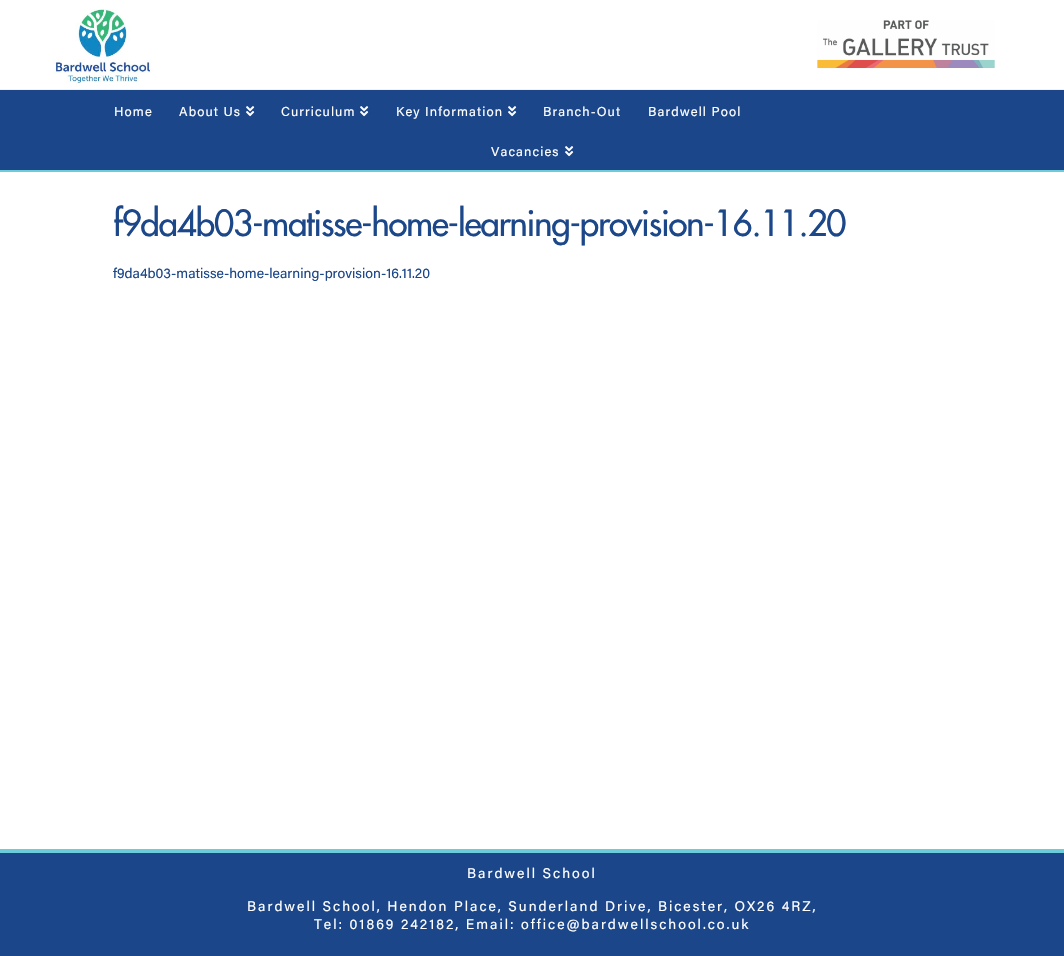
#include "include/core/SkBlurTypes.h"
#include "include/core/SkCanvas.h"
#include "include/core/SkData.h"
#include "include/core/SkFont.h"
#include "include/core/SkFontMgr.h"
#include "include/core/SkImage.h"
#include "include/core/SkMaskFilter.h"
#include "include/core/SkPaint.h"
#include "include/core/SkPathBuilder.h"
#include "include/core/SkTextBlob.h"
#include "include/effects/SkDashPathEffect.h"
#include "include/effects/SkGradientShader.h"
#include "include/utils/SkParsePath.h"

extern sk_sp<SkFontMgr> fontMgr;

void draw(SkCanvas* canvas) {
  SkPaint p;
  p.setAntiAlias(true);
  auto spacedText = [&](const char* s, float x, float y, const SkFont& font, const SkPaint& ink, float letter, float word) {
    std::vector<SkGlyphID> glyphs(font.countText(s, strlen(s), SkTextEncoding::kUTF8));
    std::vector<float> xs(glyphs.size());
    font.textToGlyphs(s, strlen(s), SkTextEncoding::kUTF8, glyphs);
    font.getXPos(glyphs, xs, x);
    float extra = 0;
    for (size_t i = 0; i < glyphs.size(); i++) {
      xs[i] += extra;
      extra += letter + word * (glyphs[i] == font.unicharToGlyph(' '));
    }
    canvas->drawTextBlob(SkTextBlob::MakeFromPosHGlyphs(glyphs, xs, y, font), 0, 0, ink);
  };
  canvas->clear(SK_ColorWHITE);
  p.setColor(SkColorSetRGB(242, 242, 242));
  canvas->drawRect(SkRect::MakeLTRB(0, 89, 1064, 90), p);
  canvas->drawImageRect(SkImages::DeferredFromEncodedData(SkData::MakeFromFileName("images/1.png")), SkRect::MakeLTRB(817, 20, 995, 69), SkSamplingOptions());
  p.setColor(SkColorSetRGB(108, 204, 218));
  canvas->drawRect(SkRect::MakeLTRB(0, 170, 1064, 172), p);
  p.setColor(SkColorSetRGB(27, 70, 138));
  canvas->drawRect(SkRect::MakeLTRB(0, 90, 1064, 170), p);
  canvas->drawImageRect(SkImages::DeferredFromEncodedData(SkData::MakeFromFileName("images/2.png")), SkRect::MakeLTRB(53, 9, 153, 87), SkSamplingOptions());
  canvas->drawImageRect(SkImages::DeferredFromEncodedData(SkData::MakeFromFileName("images/3.png")), SkRect::MakeLTRB(246, 106, 255, 117), SkSamplingOptions());
  canvas->drawImageRect(SkImages::DeferredFromEncodedData(SkData::MakeFromFileName("images/3.png")), SkRect::MakeLTRB(360, 106, 369, 117), SkSamplingOptions());
  canvas->drawImageRect(SkImages::DeferredFromEncodedData(SkData::MakeFromFileName("images/3.png")), SkRect::MakeLTRB(508, 106, 517, 117), SkSamplingOptions());
  canvas->drawImageRect(SkImages::DeferredFromEncodedData(SkData::MakeFromFileName("images/3.png")), SkRect::MakeLTRB(565, 146, 574, 157), SkSamplingOptions());
  canvas->drawRect(SkRect::MakeLTRB(0, 853, 1064, 956), p);
  p.setColor(SkColorSetRGB(108, 204, 218));
  canvas->drawRect(SkRect::MakeLTRB(0, 849, 1064, 853), p);
  SkFont font1(fontMgr->matchFamilyStyle("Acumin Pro", SkFontStyle::Normal()), 13);
  font1.setSubpixel(true);
  p.setColor(SK_ColorWHITE);
  spacedText("Home", 114, 116, font1, p, 1.1f, 0);
  spacedText("About Us", 179, 116, font1, p, 1.1f, 0);
  spacedText("Curriculum", 281, 116, font1, p, 1.1f, 0);
  spacedText("Key Information", 396, 116, font1, p, 1.1f, 0);
  spacedText("Branch-Out", 543, 116, font1, p, 1.1f, 0);
  spacedText("Bardwell Pool", 648, 116, font1, p, 1.1f, 0);
  spacedText("Vacancies", 491, 156, font1, p, 1.1f, 0);
  SkFont font2(fontMgr->matchFamilyStyle("Futura", SkFontStyle(500, SkFontStyle::kNormal_Width, SkFontStyle::kUpright_Slant)), 35);
  font2.setSubpixel(true);
  p.setColor(SkColorSetRGB(28, 71, 137));
  spacedText("f9da4b03-matisse-home-learning-provision-16.11.20", 113, 236, font2, p, -1.25f, 0);
  SkFont font3(fontMgr->matchFamilyStyle("Acumin Pro", SkFontStyle::Normal()), 14);
  font3.setSubpixel(true);
  canvas->drawString("f9da4b03-matisse-home-learning-provision-16.11.20", 113, 278, font3, p);
  p.setColor(SK_ColorWHITE);
  spacedText("Bardwell School", 467, 878, font3, p, 2, 0);
  spacedText("Bardwell School, Hendon Place, Sunderland Drive, Bicester, OX26 4RZ,", 247, 911, font3, p, 2, 0);
  spacedText("Tel: 01869 242182, Email: office@bardwellschool.co.uk", 314, 929, font3, p, 2, 0);
}
